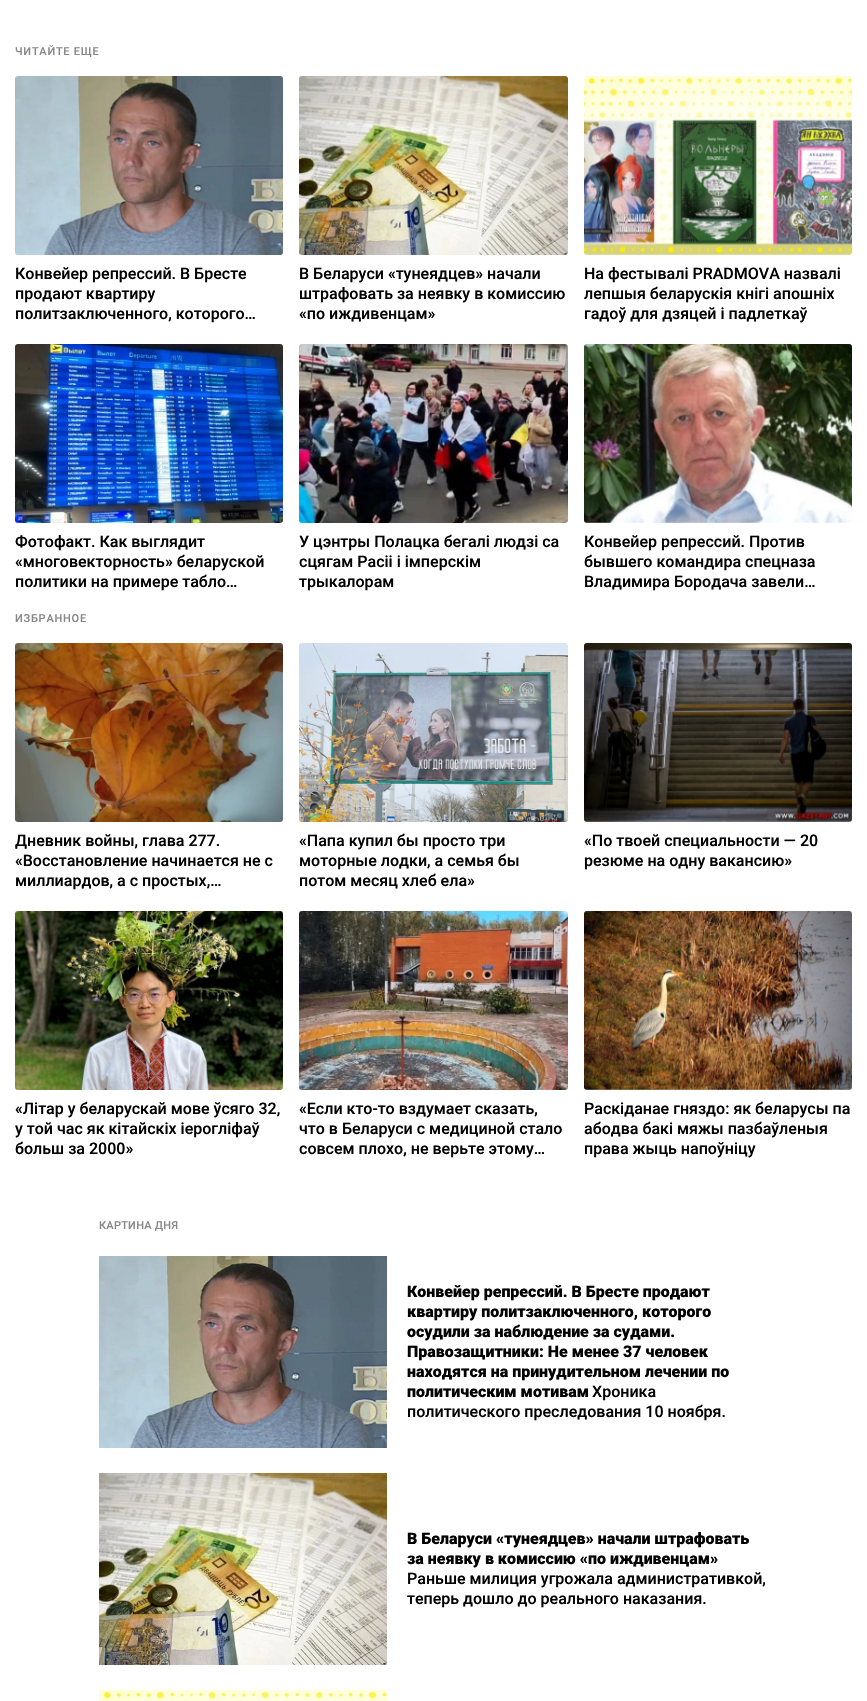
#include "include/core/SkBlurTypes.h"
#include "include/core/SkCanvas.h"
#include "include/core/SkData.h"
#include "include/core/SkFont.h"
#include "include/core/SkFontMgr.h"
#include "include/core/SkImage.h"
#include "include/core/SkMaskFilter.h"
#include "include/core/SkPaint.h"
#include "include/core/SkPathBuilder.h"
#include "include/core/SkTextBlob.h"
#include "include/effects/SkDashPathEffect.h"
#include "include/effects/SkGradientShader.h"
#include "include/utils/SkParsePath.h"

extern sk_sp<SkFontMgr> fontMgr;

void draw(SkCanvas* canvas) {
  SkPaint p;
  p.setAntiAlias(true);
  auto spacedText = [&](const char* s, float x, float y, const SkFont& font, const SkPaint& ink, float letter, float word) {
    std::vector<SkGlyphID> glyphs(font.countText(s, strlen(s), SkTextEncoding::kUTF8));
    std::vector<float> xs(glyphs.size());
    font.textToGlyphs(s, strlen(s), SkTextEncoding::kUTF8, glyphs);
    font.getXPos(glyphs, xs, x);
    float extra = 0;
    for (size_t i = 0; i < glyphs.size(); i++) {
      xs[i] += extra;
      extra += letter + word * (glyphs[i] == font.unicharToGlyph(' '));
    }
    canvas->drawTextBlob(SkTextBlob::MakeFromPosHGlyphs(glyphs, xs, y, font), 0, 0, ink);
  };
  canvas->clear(SK_ColorWHITE);
  canvas->drawImageRect(SkImages::DeferredFromEncodedData(SkData::MakeFromFileName("images/1.png")), SkRect::MakeLTRB(15, 76, 283, 255), SkSamplingOptions());
  canvas->drawImageRect(SkImages::DeferredFromEncodedData(SkData::MakeFromFileName("images/2.png")), SkRect::MakeLTRB(299, 76, 568, 255), SkSamplingOptions());
  canvas->drawImageRect(SkImages::DeferredFromEncodedData(SkData::MakeFromFileName("images/3.png")), SkRect::MakeLTRB(584, 76, 852, 255), SkSamplingOptions());
  canvas->drawImageRect(SkImages::DeferredFromEncodedData(SkData::MakeFromFileName("images/4.png")), SkRect::MakeLTRB(15, 344, 283, 523), SkSamplingOptions());
  canvas->drawImageRect(SkImages::DeferredFromEncodedData(SkData::MakeFromFileName("images/5.png")), SkRect::MakeLTRB(299, 344, 568, 523), SkSamplingOptions());
  canvas->drawImageRect(SkImages::DeferredFromEncodedData(SkData::MakeFromFileName("images/6.png")), SkRect::MakeLTRB(584, 344, 852, 523), SkSamplingOptions());
  canvas->drawImageRect(SkImages::DeferredFromEncodedData(SkData::MakeFromFileName("images/7.png")), SkRect::MakeLTRB(15, 643, 283, 822), SkSamplingOptions());
  canvas->drawImageRect(SkImages::DeferredFromEncodedData(SkData::MakeFromFileName("images/8.png")), SkRect::MakeLTRB(299, 643, 568, 822), SkSamplingOptions());
  canvas->drawImageRect(SkImages::DeferredFromEncodedData(SkData::MakeFromFileName("images/9.png")), SkRect::MakeLTRB(584, 643, 852, 822), SkSamplingOptions());
  canvas->drawImageRect(SkImages::DeferredFromEncodedData(SkData::MakeFromFileName("images/10.png")), SkRect::MakeLTRB(15, 911, 283, 1090), SkSamplingOptions());
  canvas->drawImageRect(SkImages::DeferredFromEncodedData(SkData::MakeFromFileName("images/11.png")), SkRect::MakeLTRB(299, 911, 568, 1090), SkSamplingOptions());
  canvas->drawImageRect(SkImages::DeferredFromEncodedData(SkData::MakeFromFileName("images/12.png")), SkRect::MakeLTRB(584, 911, 852, 1090), SkSamplingOptions());
  canvas->drawImageRect(SkImages::DeferredFromEncodedData(SkData::MakeFromFileName("images/13.png")), SkRect::MakeLTRB(99, 1256, 387, 1448), SkSamplingOptions());
  canvas->drawImageRect(SkImages::DeferredFromEncodedData(SkData::MakeFromFileName("images/14.png")), SkRect::MakeLTRB(99, 1473, 387, 1665), SkSamplingOptions());
  canvas->drawImageRect(SkImages::DeferredFromEncodedData(SkData::MakeFromFileName("images/15.png")), SkRect::MakeLTRB(99, 1690, 387, 1701), SkSamplingOptions());
  SkFont font1(fontMgr->matchFamilyStyle("Roboto", SkFontStyle(500, SkFontStyle::kNormal_Width, SkFontStyle::kUpright_Slant)), 11);
  font1.setSubpixel(true);
  p.setColor(SkColorSetRGB(136, 136, 136));
  spacedText("ЧИТАЙТЕ ЕЩЕ", 15, 55, font1, p, 0.75f, 0);
  SkFont font2(fontMgr->matchFamilyStyle("Roboto", SkFontStyle(500, SkFontStyle::kNormal_Width, SkFontStyle::kUpright_Slant)), 16);
  font2.setSubpixel(true);
  p.setColor(SK_ColorBLACK);
  canvas->drawString("Конвейер репрессий. В Бресте", 15, 279, font2, p);
  canvas->drawString("продают квартиру", 15, 299, font2, p);
  canvas->drawString("политзаключенного, которого…", 15, 319, font2, p);
  canvas->drawString("В Беларуси «тунеядцев» начали", 299, 279, font2, p);
  canvas->drawString("штрафовать за неявку в комиссию", 299, 299, font2, p);
  canvas->drawString("«по иждивенцам»", 299, 319, font2, p);
  canvas->drawString("На фестывалі PRADMOVA назвалі", 584, 279, font2, p);
  canvas->drawString("лепшыя беларускія кнігі апошніх", 584, 299, font2, p);
  canvas->drawString("гадоў для дзяцей і падлеткаў", 584, 319, font2, p);
  canvas->drawString("Фотофакт. Как выглядит", 15, 547, font2, p);
  canvas->drawString("«многовекторность» беларуской", 15, 567, font2, p);
  canvas->drawString("политики на примере табло…", 15, 587, font2, p);
  canvas->drawString("У цэнтры Полацка бегалі людзі са", 299, 547, font2, p);
  canvas->drawString("сцягам Расіі і імперскім", 299, 567, font2, p);
  canvas->drawString("трыкалорам", 299, 587, font2, p);
  canvas->drawString("Конвейер репрессий. Против", 584, 547, font2, p);
  canvas->drawString("бывшего командира спецназа", 584, 567, font2, p);
  canvas->drawString("Владимира Бородача завели…", 584, 587, font2, p);
  p.setColor(SkColorSetRGB(136, 136, 136));
  spacedText("ИЗБРАННОЕ", 15, 622, font1, p, 0.75f, 0);
  p.setColor(SK_ColorBLACK);
  canvas->drawString("Дневник войны, глава 277.", 15, 846, font2, p);
  canvas->drawString("«Восстановление начинается не с", 15, 866, font2, p);
  canvas->drawString("миллиардов, а с простых,…", 15, 886, font2, p);
  canvas->drawString("«Папа купил бы просто три", 299, 846, font2, p);
  canvas->drawString("моторные лодки, а семья бы", 299, 866, font2, p);
  canvas->drawString("потом месяц хлеб ела»", 299, 886, font2, p);
  canvas->drawString("«По твоей специальности — 20", 584, 846, font2, p);
  canvas->drawString("резюме на одну вакансию»", 584, 866, font2, p);
  canvas->drawString("«Літар у беларускай мове ўсяго 32,", 15, 1114, font2, p);
  canvas->drawString("у той час як кітайскіх іерогліфаў", 15, 1134, font2, p);
  canvas->drawString("больш за 2000»", 15, 1154, font2, p);
  canvas->drawString("«Если кто-то вздумает сказать,", 299, 1114, font2, p);
  canvas->drawString("что в Беларуси с медициной стало", 299, 1134, font2, p);
  canvas->drawString("совсем плохо, не верьте этому…", 299, 1154, font2, p);
  canvas->drawString("Раскіданае гняздо: як беларусы па", 584, 1114, font2, p);
  canvas->drawString("абодва бакі мяжы пазбаўленыя", 584, 1134, font2, p);
  canvas->drawString("права жыць напоўніцу", 584, 1154, font2, p);
  p.setColor(SkColorSetRGB(136, 136, 136));
  spacedText("КАРТИНА ДНЯ", 99, 1229, font1, p, 0.25f, 0);
  SkFont font3(fontMgr->matchFamilyStyle("Roboto", SkFontStyle(900, SkFontStyle::kNormal_Width, SkFontStyle::kUpright_Slant)), 16);
  font3.setSubpixel(true);
  p.setColor(SK_ColorBLACK);
  canvas->drawString("Конвейер репрессий. В Бресте продают", 407, 1297, font3, p);
  canvas->drawString("квартиру политзаключенного, которого", 407, 1317, font3, p);
  canvas->drawString("осудили за наблюдение за судами.", 407, 1337, font3, p);
  canvas->drawString("Правозащитники: Не менее 37 человек", 407, 1357, font3, p);
  canvas->drawString("находятся на принудительном лечении по", 407, 1377, font3, p);
  canvas->drawString("политическим мотивам", 407, 1397, font3, p);
  canvas->drawString("Хроника", 592, 1397, font2, p);
  canvas->drawString("политического преследования 10 ноября.", 407, 1417, font2, p);
  canvas->drawString("В Беларуси «тунеядцев» начали штрафовать", 407, 1544, font3, p);
  canvas->drawString("за неявку в комиссию «по иждивенцам»", 407, 1564, font3, p);
  canvas->drawString("Раньше милиция угрожала административкой,", 407, 1584, font2, p);
  canvas->drawString("теперь дошло до реального наказания.", 407, 1604, font2, p);
}
